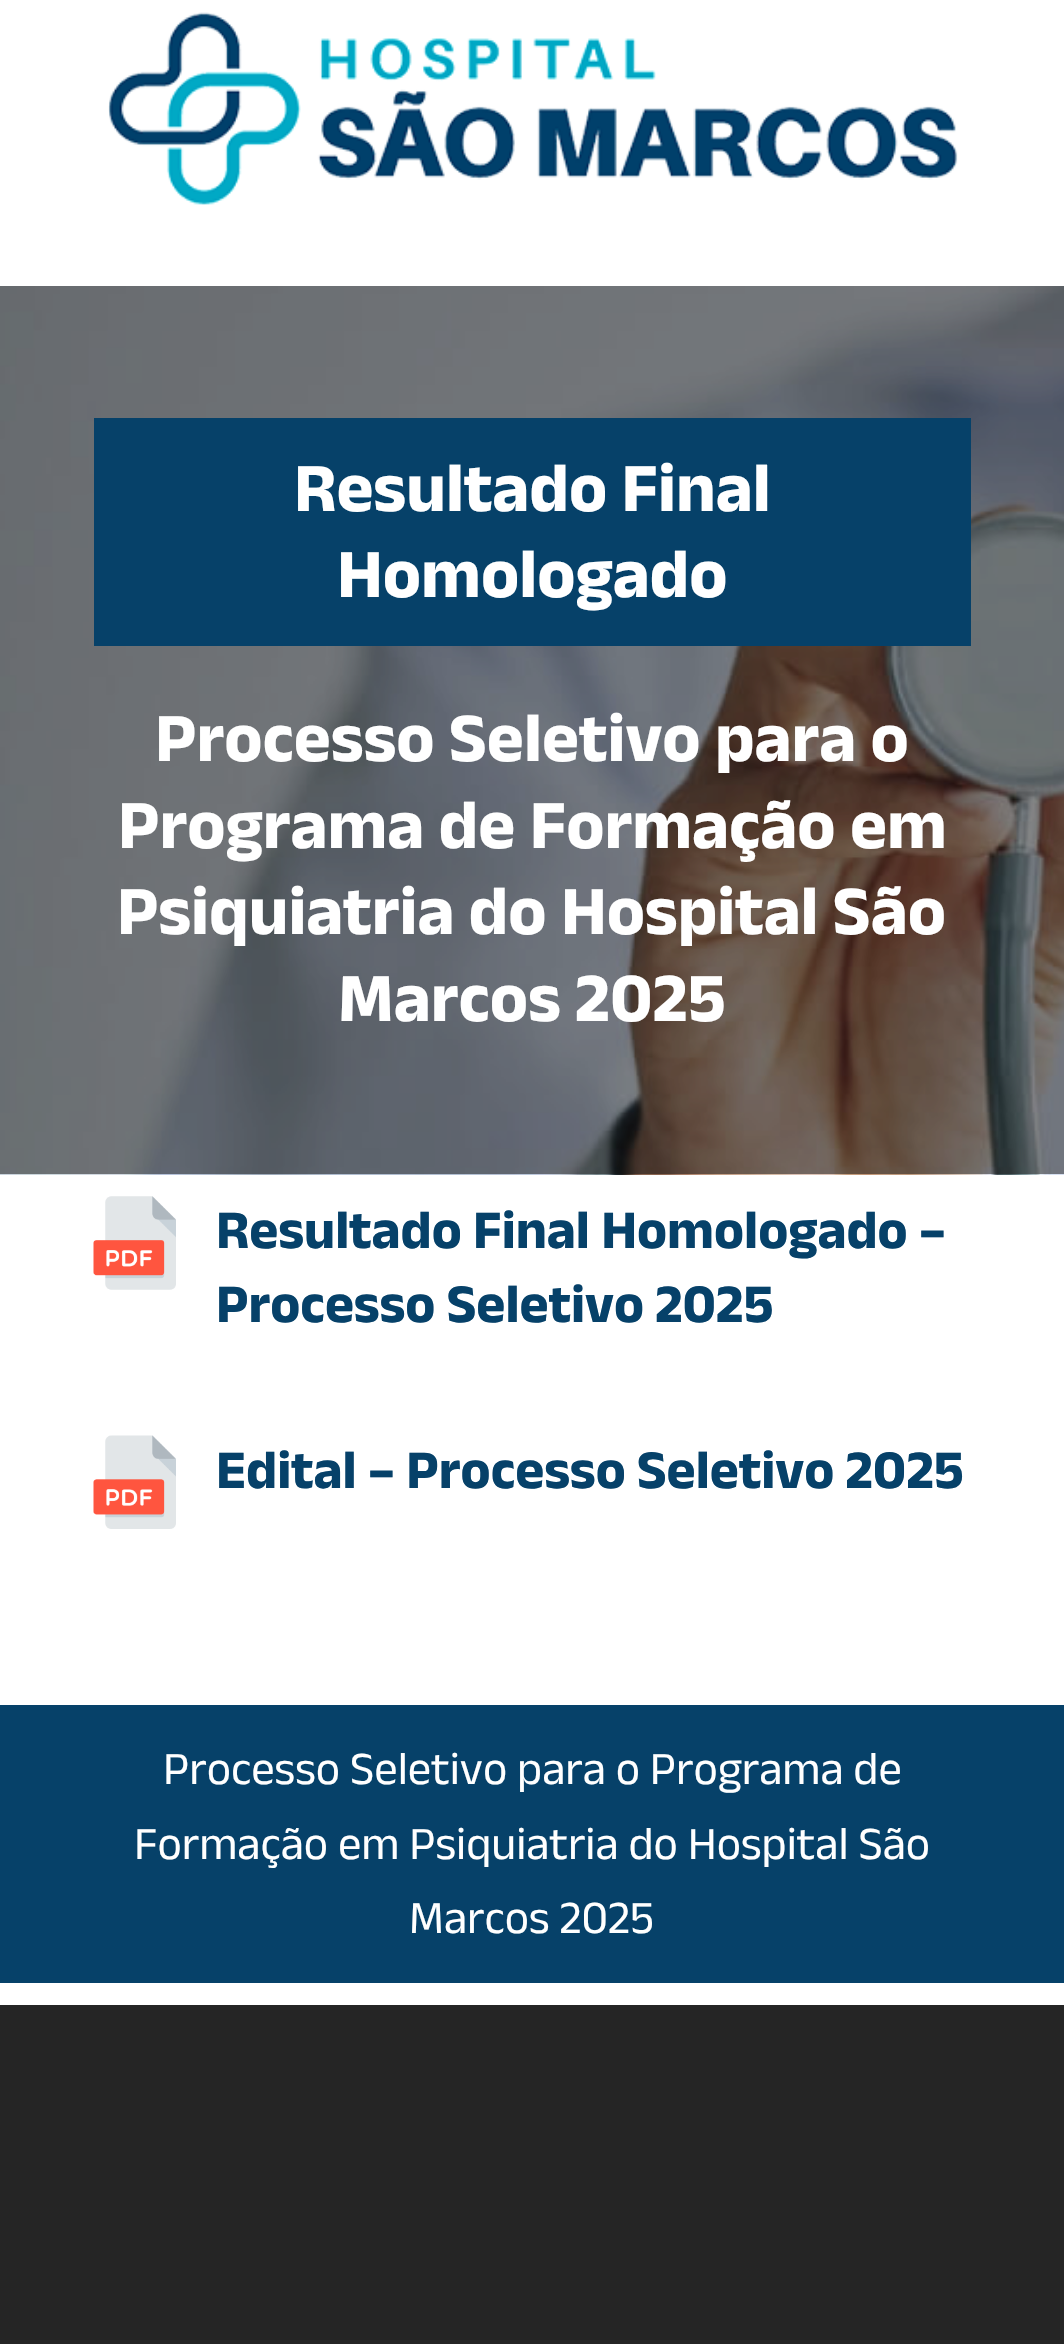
#include "include/core/SkBlurTypes.h"
#include "include/core/SkCanvas.h"
#include "include/core/SkData.h"
#include "include/core/SkFont.h"
#include "include/core/SkFontMgr.h"
#include "include/core/SkImage.h"
#include "include/core/SkMaskFilter.h"
#include "include/core/SkPaint.h"
#include "include/core/SkPathBuilder.h"
#include "include/core/SkTextBlob.h"
#include "include/effects/SkDashPathEffect.h"
#include "include/effects/SkGradientShader.h"
#include "include/utils/SkParsePath.h"

extern sk_sp<SkFontMgr> fontMgr;

void draw(SkCanvas* canvas) {
  SkPaint p;
  p.setAntiAlias(true);
  canvas->clear(SK_ColorWHITE);
  canvas->drawImageRect(SkImages::DeferredFromEncodedData(SkData::MakeFromFileName("images/1.png")), SkRect::MakeLTRB(108, 12, 958, 205), SkSamplingOptions());
  canvas->drawImageRect(SkImages::DeferredFromEncodedData(SkData::MakeFromFileName("images/2.png")), SkRect::MakeLTRB(0, 286, 1064, 1175), SkSamplingOptions());
  p.setColor(SkColorSetRGB(6, 65, 105));
  canvas->drawRect(SkRect::MakeLTRB(94, 418, 971, 646), p);
  canvas->drawImageRect(SkImages::DeferredFromEncodedData(SkData::MakeFromFileName("images/3.png")), SkRect::MakeLTRB(93, 1196, 176, 1290), SkSamplingOptions());
  canvas->drawImageRect(SkImages::DeferredFromEncodedData(SkData::MakeFromFileName("images/4.png")), SkRect::MakeLTRB(93, 1435, 176, 1529), SkSamplingOptions());
  canvas->drawRect(SkRect::MakeLTRB(0, 1705, 1064, 1983), p);
  p.setColor(SkColorSetRGB(37, 37, 37));
  canvas->drawRect(SkRect::MakeLTRB(0, 2005, 1064, 2344), p);
  SkFont font1(fontMgr->matchFamilyStyle("Anek Latin", SkFontStyle::Bold()), 70.1f);
  font1.setSubpixel(true);
  p.setColor(SK_ColorWHITE);
  canvas->drawString("Resultado Final", 294, 511, font1, p);
  canvas->drawString("Homologado", 337, 597, font1, p);
  canvas->drawString("Processo Seletivo para o", 155, 761, font1, p);
  canvas->drawString("Programa de Formação em", 118, 848, font1, p);
  canvas->drawString("Psiquiatria do Hospital São", 117, 934, font1, p);
  canvas->drawString("Marcos 2025", 338, 1021, font1, p);
  SkFont font2(fontMgr->matchFamilyStyle("Anek Latin", SkFontStyle::Bold()), 55);
  font2.setSubpixel(true);
  p.setColor(SkColorSetRGB(6, 65, 105));
  canvas->drawString("Resultado Final Homologado –", 216, 1248, font2, p);
  canvas->drawString("Processo Seletivo 2025", 216, 1322, font2, p);
  canvas->drawString("Edital – Processo Seletivo 2025", 216, 1488, font2, p);
  SkFont font3(fontMgr->matchFamilyStyle("Anek Latin", SkFontStyle::Normal()), 46.75f);
  font3.setSubpixel(true);
  p.setColor(SK_ColorWHITE);
  canvas->drawString("Processo Seletivo para o Programa de", 163, 1784, font3, p);
  canvas->drawString("Formação em Psiquiatria do Hospital São", 134, 1859, font3, p);
  canvas->drawString("Marcos 2025", 409, 1933, font3, p);
}
